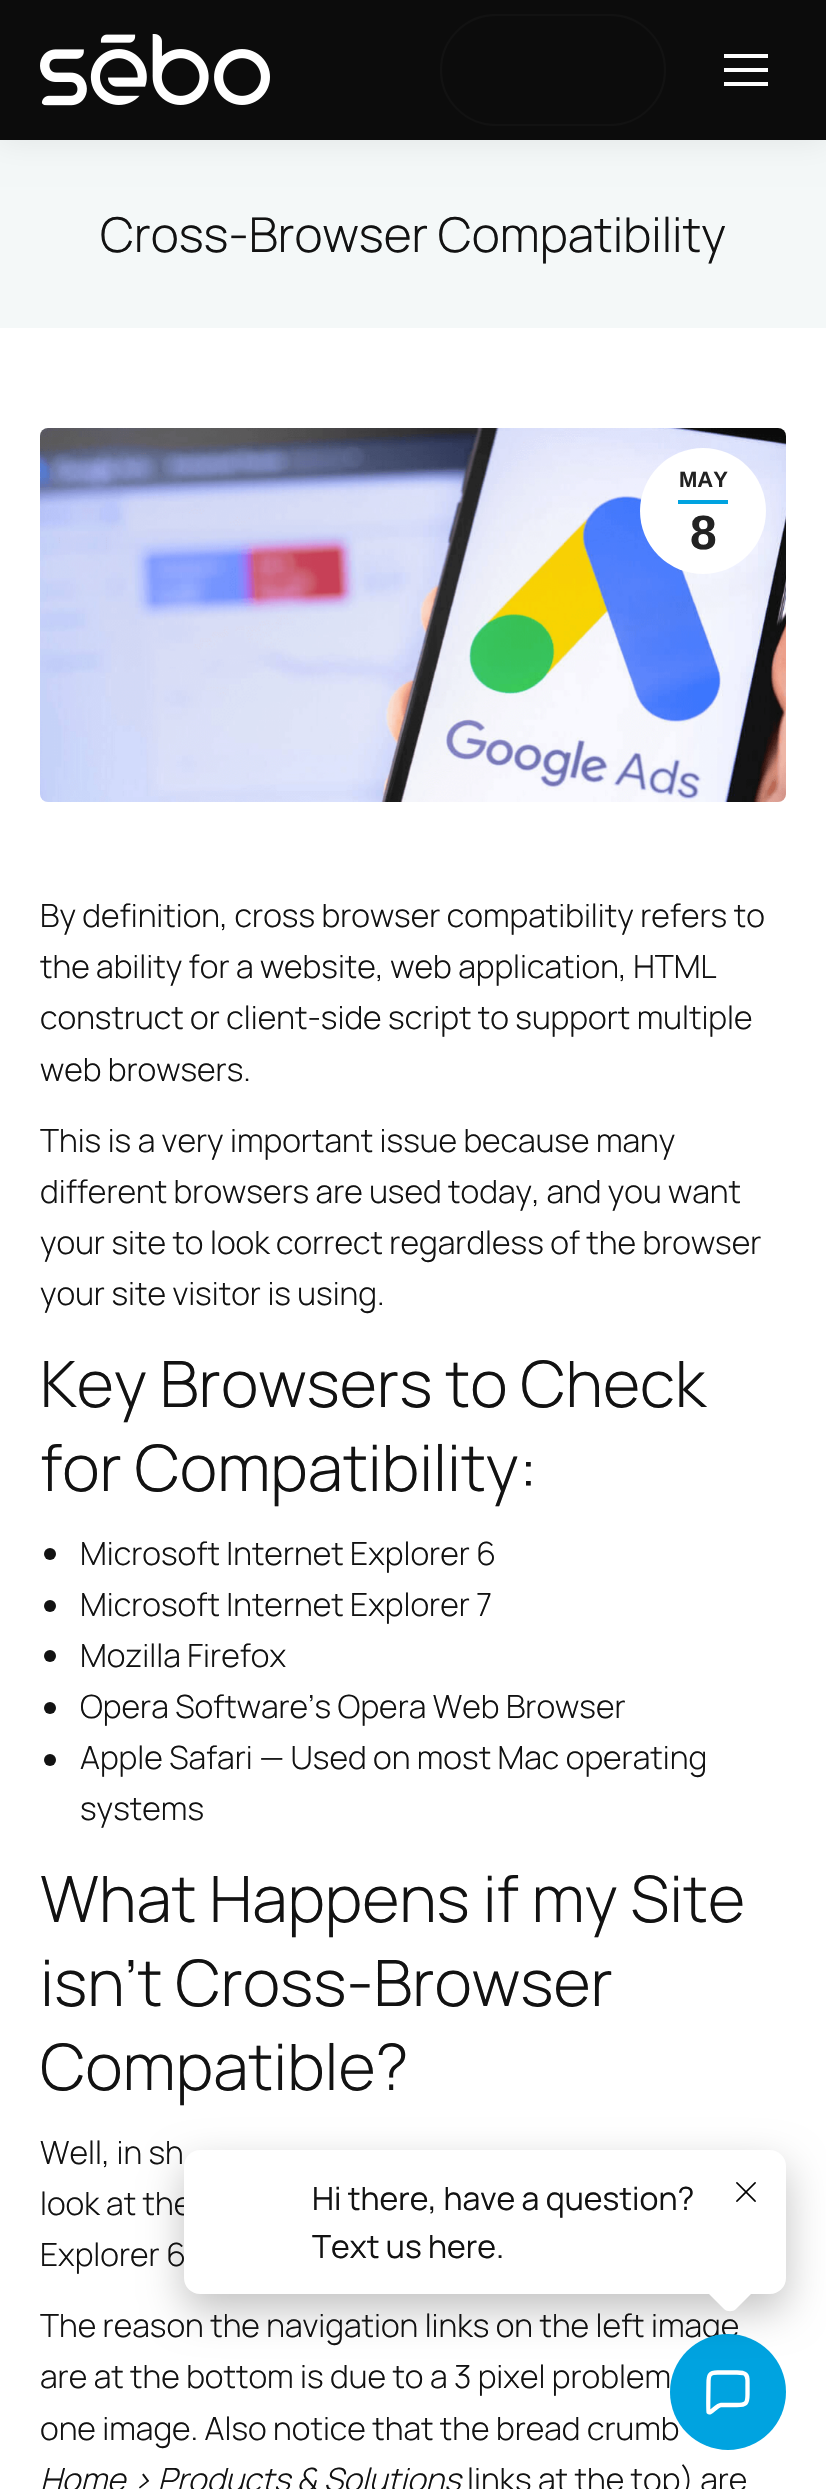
#include "include/core/SkBlurTypes.h"
#include "include/core/SkCanvas.h"
#include "include/core/SkData.h"
#include "include/core/SkFont.h"
#include "include/core/SkFontMgr.h"
#include "include/core/SkImage.h"
#include "include/core/SkMaskFilter.h"
#include "include/core/SkPaint.h"
#include "include/core/SkPathBuilder.h"
#include "include/core/SkTextBlob.h"
#include "include/effects/SkDashPathEffect.h"
#include "include/effects/SkGradientShader.h"
#include "include/utils/SkParsePath.h"

extern sk_sp<SkFontMgr> fontMgr;

void draw(SkCanvas* canvas) {
  SkPaint p;
  p.setAntiAlias(true);
  canvas->clear(SK_ColorWHITE);
  p.setColor(SkColorSetRGB(244, 248, 248));
  canvas->drawRect(SkRect::MakeLTRB(0, 140, 826, 328), p);
  p.setColor(SkColorSetARGB(18, 0, 0, 0));
  p.setMaskFilter(SkMaskFilter::MakeBlur(kNormal_SkBlurStyle, 15));
  canvas->drawRect(SkRect::MakeLTRB(-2, -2, 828, 142), p);
  p.setMaskFilter(nullptr);
  p.setColor(SkColorSetRGB(12, 12, 12));
  canvas->drawRect(SkRect::MakeLTRB(0, 0, 826, 140), p);
  canvas->drawImageRect(SkImages::DeferredFromEncodedData(SkData::MakeFromFileName("images/1.png")), SkRect::MakeLTRB(40, 34, 270, 106), SkSamplingOptions());
  p.setStyle(SkPaint::kStroke_Style);
  p.setStrokeWidth(2);
  p.setColor(SkColorSetRGB(18, 18, 18));
  canvas->drawRoundRect(SkRect::MakeLTRB(441, 15, 665, 125), 55, 55, p);
  p.setStyle(SkPaint::kFill_Style);
  p.setColor(SK_ColorWHITE);
  canvas->drawRect(SkRect::MakeLTRB(724, 54, 768, 58), p);
  canvas->drawRect(SkRect::MakeLTRB(724, 68, 768, 72), p);
  canvas->drawRect(SkRect::MakeLTRB(724, 82, 768, 86), p);
  canvas->drawImageRect(SkImages::DeferredFromEncodedData(SkData::MakeFromFileName("images/2.png")), SkRect::MakeLTRB(40, 428, 786, 802), SkSamplingOptions());
  canvas->drawCircle(703, 511, 63, p);
  p.setColor(SkColorSetRGB(0, 163, 224));
  canvas->drawRect(SkRect::MakeLTRB(678, 500, 728, 504), p);
  p.setColor(SkColorSetRGB(18, 18, 18));
  canvas->drawCircle(50, 1554, 6, p);
  canvas->drawCircle(50, 1606, 6, p);
  canvas->drawCircle(50, 1656, 6, p);
  canvas->drawCircle(50, 1708, 6, p);
  canvas->drawCircle(50, 1760, 6, p);
  SkFont font1(fontMgr->matchFamilyStyle("Manrope", SkFontStyle(300, SkFontStyle::kNormal_Width, SkFontStyle::kUpright_Slant)), 48);
  font1.setSubpixel(true);
  canvas->drawString("Cross-Browser Compatibility", 100, 252, font1, p);
  SkFont font2(fontMgr->matchFamilyStyle("Liberation Sans", SkFontStyle::Bold()), 22);
  font2.setSubpixel(true);
  p.setColor(SkColorSetRGB(34, 34, 34));
  canvas->drawString("MAY", 679, 487, font2, p);
  SkFont font3(fontMgr->matchFamilyStyle("Liberation Sans", SkFontStyle::Bold()), 48);
  font3.setSubpixel(true);
  canvas->drawString("8", 690, 549, font3, p);
  SkFont font4(fontMgr->matchFamilyStyle("Manrope", SkFontStyle(300, SkFontStyle::kNormal_Width, SkFontStyle::kUpright_Slant)), 32);
  font4.setSubpixel(true);
  p.setColor(SkColorSetRGB(18, 18, 18));
  canvas->drawString("By definition, cross browser compatibility refers to", 40, 927, font4, p);
  canvas->drawString("the ability for a website, web application, HTML", 40, 978, font4, p);
  canvas->drawString("construct or client-side script to support multiple", 40, 1029, font4, p);
  canvas->drawString("web browsers.", 40, 1081, font4, p);
  canvas->drawString("This is a very important issue because many", 40, 1152, font4, p);
  canvas->drawString("different browsers are used today, and you want", 40, 1203, font4, p);
  canvas->drawString("your site to look correct regardless of the browser", 40, 1254, font4, p);
  canvas->drawString("your site visitor is using.", 40, 1305, font4, p);
  SkFont font5(fontMgr->matchFamilyStyle("Manrope", SkFontStyle(300, SkFontStyle::kNormal_Width, SkFontStyle::kUpright_Slant)), 64);
  font5.setSubpixel(true);
  canvas->drawString("Key Browsers to Check", 40, 1407, font5, p);
  canvas->drawString("for Compatibility:", 40, 1491, font5, p);
  canvas->drawString("Microsoft Internet Explorer 6", 80, 1565, font4, p);
  canvas->drawString("Microsoft Internet Explorer 7", 80, 1616, font4, p);
  canvas->drawString("Mozilla Firefox", 80, 1667, font4, p);
  canvas->drawString("Opera Software’s Opera Web Browser", 80, 1718, font4, p);
  canvas->drawString("Apple Safari — Used on most Mac operating", 80, 1769, font4, p);
  canvas->drawString("systems", 80, 1820, font4, p);
  canvas->drawString("What Happens if my Site", 40, 1922, font5, p);
  canvas->drawString("isn’t Cross-Browser", 40, 2006, font5, p);
  canvas->drawString("Compatible?", 40, 2090, font5, p);
  canvas->drawString("Well, in sh", 40, 2164, font4, p);
  canvas->drawString("look at the", 40, 2215, font4, p);
  canvas->drawString("Explorer 6", 40, 2266, font4, p);
  canvas->drawString("The reason the navigation links on the left image", 40, 2337, font4, p);
  canvas->drawString("are at the bottom is due to a 3 pixel problem", 40, 2388, font4, p);
  canvas->drawString("one image. Also notice that the bread crumb", 40, 2440, font4, p);
  SkFont font6(fontMgr->matchFamilyStyle("Manrope", SkFontStyle(300, SkFontStyle::kNormal_Width, SkFontStyle::kItalic_Slant)), 32);
  font6.setSubpixel(true);
  canvas->drawString("Home > Products & Solutions", 40, 2491, font6, p);
  canvas->drawString("links at the top) are", 467, 2491, font4, p);
  p.setColor(SkColorSetRGB(0, 163, 224));
  canvas->drawCircle(728, 2392, 58, p);
  p.setStyle(SkPaint::kStroke_Style);
  p.setStrokeWidth(4.3f);
  p.setStrokeCap(SkPaint::kRound_Cap);
  p.setStrokeJoin(SkPaint::kRound_Join);
  p.setColor(SK_ColorWHITE);
  canvas->drawPath(SkPathBuilder().moveTo(708.5f, 2383).cubicTo(708.5f, 2375, 709.5f, 2372.5f, 717.5f, 2372.5f).lineTo(737, 2372.5f).lineTo(743, 2373).cubicTo(748.5f, 2374, 747.5f, 2380.5f, 747.5f, 2385).lineTo(747.5f, 2394.5f).cubicTo(747.5f, 2403.5f, 746, 2405, 737, 2405).lineTo(721, 2405).cubicTo(716.5f, 2405.5f, 710.5f, 2414, 708.5f, 2412).cubicTo(708, 2411, 708.5f, 2386, 708.5f, 2383).close().detach(), p);
  p.setStyle(SkPaint::kFill_Style);
  p.setColor(SkColorSetARGB(61, 0, 0, 0));
  p.setMaskFilter(SkMaskFilter::MakeBlur(kNormal_SkBlurStyle, 20));
  canvas->drawRoundRect(SkRect::MakeLTRB(184, 2166, 786, 2310), 16, 16, p);
  p.setMaskFilter(nullptr);
  p.setColor(SK_ColorWHITE);
  canvas->drawRoundRect(SkRect::MakeLTRB(184, 2150, 786, 2294), 16, 16, p);
  canvas->drawImageRect(SkImages::DeferredFromEncodedData(SkData::MakeFromFileName("images/3.png")), SkRect::MakeLTRB(736, 2182, 756, 2202), SkSamplingOptions());
  SkFont font7(fontMgr->matchFamilyStyle("Manrope", SkFontStyle::Normal()), 32);
  font7.setSubpixel(true);
  p.setColor(SkColorSetRGB(18, 18, 18));
  canvas->drawString("Text us here.", 312, 2258, font7, p);
  canvas->drawString("Hi there, have a question?", 312, 2210, font7, p);
  p.setColor(SK_ColorWHITE);
  canvas->drawPath(SkPathBuilder().moveTo(736, 2263).lineTo(753, 2280).cubicTo(756, 2283, 756, 2289, 753, 2292).lineTo(736, 2309).cubicTo(733, 2312, 727, 2312, 724, 2309).lineTo(707, 2292).cubicTo(704, 2289, 704, 2283, 707, 2280).lineTo(724, 2263).cubicTo(727, 2260, 733, 2260, 736, 2263).close().detach(), p);
}
